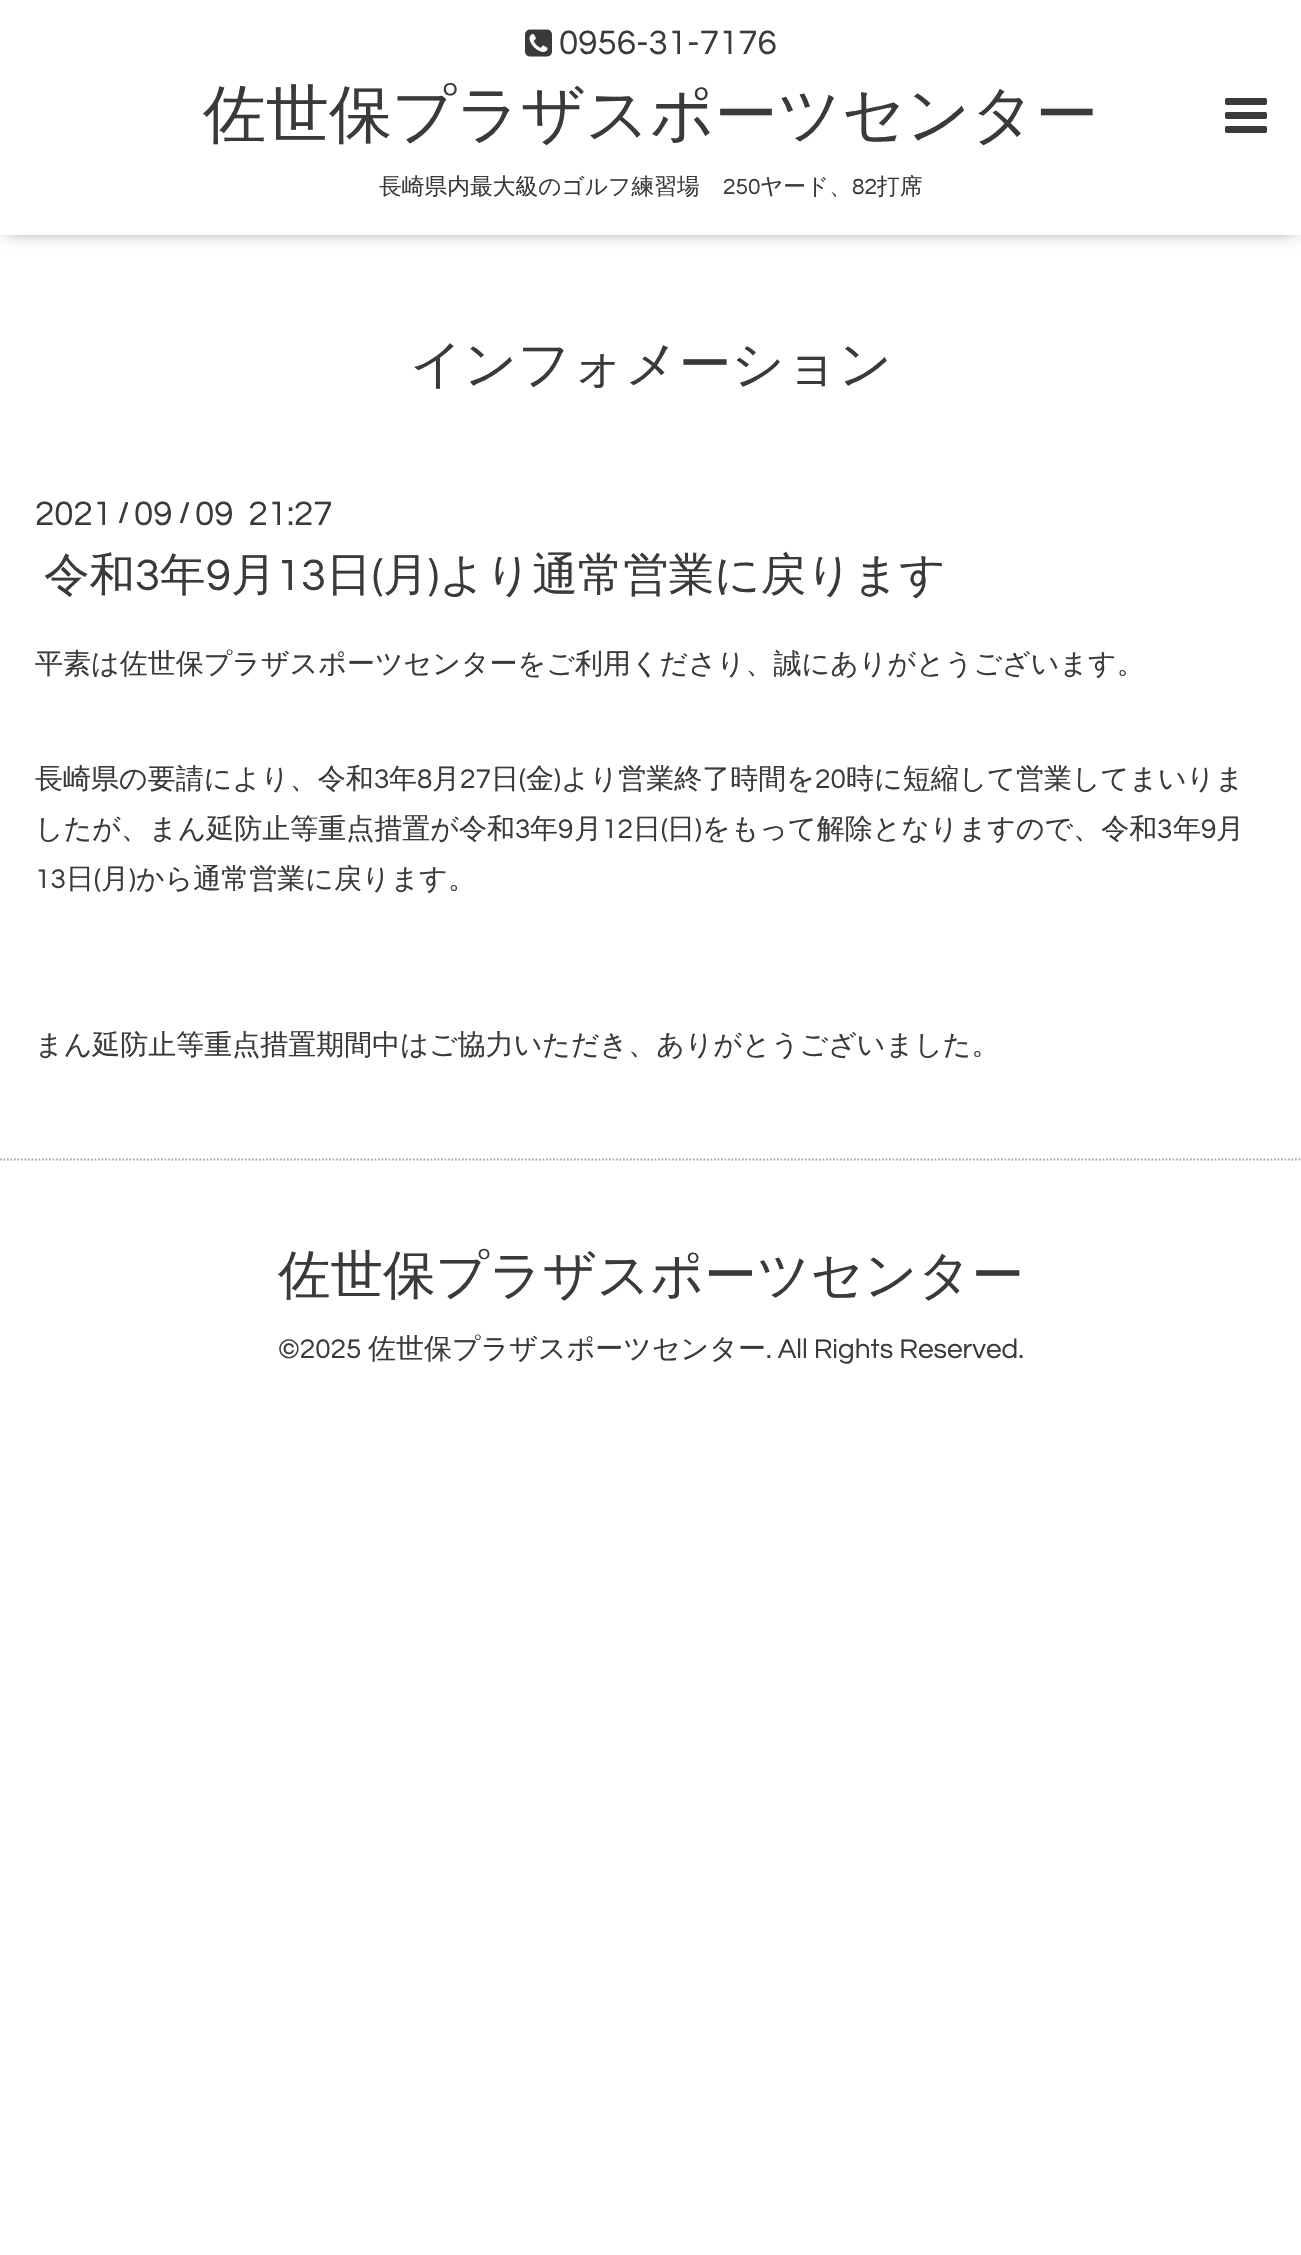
#include "include/core/SkBlurTypes.h"
#include "include/core/SkCanvas.h"
#include "include/core/SkData.h"
#include "include/core/SkFont.h"
#include "include/core/SkFontMgr.h"
#include "include/core/SkImage.h"
#include "include/core/SkMaskFilter.h"
#include "include/core/SkPaint.h"
#include "include/core/SkPathBuilder.h"
#include "include/core/SkTextBlob.h"
#include "include/effects/SkDashPathEffect.h"
#include "include/effects/SkGradientShader.h"
#include "include/utils/SkParsePath.h"

extern sk_sp<SkFontMgr> fontMgr;

void draw(SkCanvas* canvas) {
  SkPaint p;
  p.setAntiAlias(true);
  canvas->clear(SK_ColorWHITE);
  p.setColor(SkColorSetARGB(153, 0, 0, 0));
  p.setMaskFilter(SkMaskFilter::MakeBlur(kNormal_SkBlurStyle, 9));
  canvas->drawRect(SkRect::MakeLTRB(7, 9, 1295, 229), p);
  p.setMaskFilter(nullptr);
  p.setColor(SK_ColorWHITE);
  canvas->drawRect(SkRect::MakeLTRB(0, 0, 1301, 235), p);
  canvas->drawImageRect(SkImages::DeferredFromEncodedData(SkData::MakeFromFileName("images/1.png")), SkRect::MakeLTRB(525, 29, 552, 57), SkSamplingOptions());
  canvas->drawImageRect(SkImages::DeferredFromEncodedData(SkData::MakeFromFileName("images/2.png")), SkRect::MakeLTRB(1225, 98, 1267, 133), SkSamplingOptions());
  p.setStyle(SkPaint::kStroke_Style);
  p.setStrokeWidth(1.8f);
  p.setColor(SkColorSetRGB(169, 169, 169));
  p.setPathEffect(SkDashPathEffect::Make({{1.75f, 1.75f}}, 0));
  canvas->drawPath(SkPathBuilder().moveTo(0, 1159.5f).lineTo(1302, 1159.5f).detach(), p);
  p.setPathEffect(nullptr);
  SkFont font1(fontMgr->matchFamilyStyle("Questrial", SkFontStyle::Normal()), 35);
  font1.setSubpixel(true);
  p.setStyle(SkPaint::kFill_Style);
  p.setColor(SkColorSetRGB(58, 58, 58));
  canvas->drawString("0956-31-7176", 559, 54, font1, p);
  SkFont font2(fontMgr->matchFamilyStyle("WenQuanYi Zen Hei", SkFontStyle(500, SkFontStyle::kNormal_Width, SkFontStyle::kUpright_Slant)), 63);
  font2.setSubpixel(true);
  canvas->drawString("佐世保プラザスポーツセンター", 203, 136, font2, p);
  SkFont font3(fontMgr->matchFamilyStyle("WenQuanYi Zen Hei", SkFontStyle(500, SkFontStyle::kNormal_Width, SkFontStyle::kUpright_Slant)), 22.75f);
  font3.setSubpixel(true);
  canvas->drawString("長崎県内最大級のゴルフ練習場", 379, 194, font3, p);
  SkFont font4(fontMgr->matchFamilyStyle("Questrial", SkFontStyle::Normal()), 22.75f);
  font4.setSubpixel(true);
  canvas->drawString("250", 723, 194, font4, p);
  canvas->drawString("ヤード、", 760, 194, font3, p);
  canvas->drawString("82", 852, 194, font4, p);
  canvas->drawString("打席", 877, 194, font3, p);
  SkFont font5(fontMgr->matchFamilyStyle("WenQuanYi Zen Hei", SkFontStyle(500, SkFontStyle::kNormal_Width, SkFontStyle::kUpright_Slant)), 52.5f);
  font5.setSubpixel(true);
  canvas->drawString("インフォメーション", 410, 382, font5, p);
  canvas->drawString("2021", 35, 525, font1, p);
  SkFont font6(fontMgr->matchFamilyStyle("Questrial", SkFontStyle::Bold()), 28);
  font6.setSubpixel(true);
  canvas->drawString("/", 118, 522, font6, p);
  canvas->drawString("09", 134, 525, font1, p);
  canvas->drawString("/", 179, 522, font6, p);
  canvas->drawString("09  21:27", 195, 525, font1, p);
  SkFont font7(fontMgr->matchFamilyStyle("WenQuanYi Zen Hei", SkFontStyle(500, SkFontStyle::kNormal_Width, SkFontStyle::kUpright_Slant)), 45.5f);
  font7.setSubpixel(true);
  canvas->drawString("令和", 44, 590, font7, p);
  SkFont font8(fontMgr->matchFamilyStyle("Questrial", SkFontStyle::Normal()), 45.5f);
  font8.setSubpixel(true);
  canvas->drawString("3", 135, 590, font8, p);
  canvas->drawString("年", 160, 590, font7, p);
  canvas->drawString("9", 206, 590, font8, p);
  canvas->drawString("月", 231, 590, font7, p);
  canvas->drawString("13", 276, 590, font8, p);
  canvas->drawString("日", 326, 590, font7, p);
  canvas->drawString("(", 372, 590, font8, p);
  canvas->drawString("月", 383, 590, font7, p);
  canvas->drawString(")", 428, 590, font8, p);
  canvas->drawString("より通常営業に戻ります", 439, 590, font7, p);
  SkFont font9(fontMgr->matchFamilyStyle("WenQuanYi Zen Hei", SkFontStyle(500, SkFontStyle::kNormal_Width, SkFontStyle::kUpright_Slant)), 28);
  font9.setSubpixel(true);
  canvas->drawString("平素は佐世保プラザスポーツセンターをご利用くださり、誠にありがとうございます。", 35, 673, font9, p);
  canvas->drawString("長崎県の要請により、令和", 35, 788, font9, p);
  SkFont font10(fontMgr->matchFamilyStyle("Questrial", SkFontStyle::Normal()), 28);
  font10.setSubpixel(true);
  canvas->drawString("3", 374, 788, font10, p);
  canvas->drawString("年", 389, 788, font9, p);
  canvas->drawString("8", 417, 788, font10, p);
  canvas->drawString("月", 432, 788, font9, p);
  canvas->drawString("27", 460, 788, font10, p);
  canvas->drawString("日", 491, 788, font9, p);
  canvas->drawString("(", 519, 788, font10, p);
  canvas->drawString("金", 526, 788, font9, p);
  canvas->drawString(")", 554, 788, font10, p);
  canvas->drawString("より営業終了時間を", 561, 788, font9, p);
  canvas->drawString("20", 815, 788, font10, p);
  canvas->drawString("時に短縮して営業してまいりま", 846, 788, font9, p);
  canvas->drawString("したが、まん延防止等重点措置が令和", 35, 838, font9, p);
  canvas->drawString("3", 515, 838, font10, p);
  canvas->drawString("年", 530, 838, font9, p);
  canvas->drawString("9", 558, 838, font10, p);
  canvas->drawString("月", 574, 838, font9, p);
  canvas->drawString("12", 602, 838, font10, p);
  canvas->drawString("日", 633, 838, font9, p);
  canvas->drawString("(", 661, 838, font10, p);
  canvas->drawString("日", 667, 838, font9, p);
  canvas->drawString(")", 695, 838, font10, p);
  canvas->drawString("をもって解除となりますので、令和", 702, 838, font9, p);
  canvas->drawString("3", 1157, 838, font10, p);
  canvas->drawString("年", 1173, 838, font9, p);
  canvas->drawString("9", 1201, 838, font10, p);
  canvas->drawString("月", 1216, 838, font9, p);
  canvas->drawString("13", 35, 888, font10, p);
  canvas->drawString("日", 66, 888, font9, p);
  canvas->drawString("(", 94, 888, font10, p);
  canvas->drawString("月", 101, 888, font9, p);
  canvas->drawString(")", 129, 888, font10, p);
  canvas->drawString("から通常営業に戻ります。", 136, 888, font9, p);
  canvas->drawString("まん延防止等重点措置期間中はご協力いただき、ありがとうございました。", 35, 1054, font9, p);
  canvas->drawString("佐世保プラザスポーツセンター", 278, 1293, font5, p);
  canvas->drawString("©2025", 278, 1358, font10, p);
  canvas->drawString("佐世保プラザスポーツセンター", 368, 1358, font9, p);
  canvas->drawString(". All Rights Reserved.", 766, 1358, font10, p);
}
